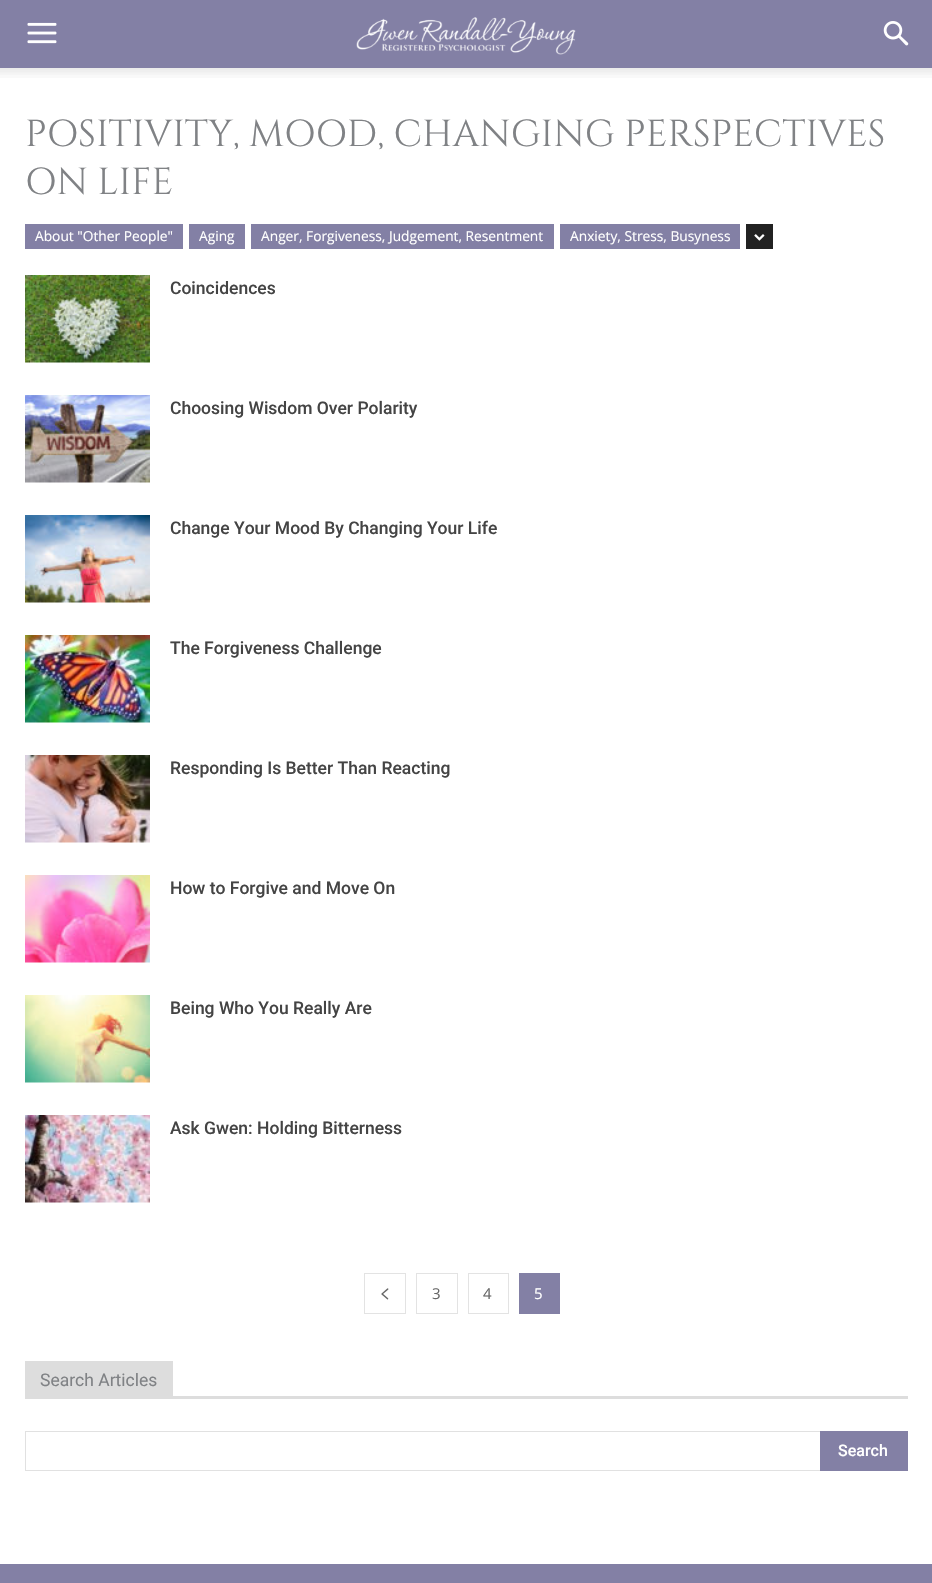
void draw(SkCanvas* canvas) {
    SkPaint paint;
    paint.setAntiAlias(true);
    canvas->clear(0xFFFFFFFF);
    paint.setColor(0xFF8380A5);
    canvas->drawRect(SkRect::MakeXYWH(0, 0, 932, 68), paint);
    canvas->drawImageRect(SkImages::DeferredFromEncodedData(SkData::MakeFromFileName("img1.png")), SkRect::MakeXYWH(27, 22, 30, 22), SkSamplingOptions());
    canvas->drawImageRect(SkImages::DeferredFromEncodedData(SkData::MakeFromFileName("img2.png")), SkRect::MakeXYWH(356, 17, 220, 38), SkSamplingOptions());
    canvas->drawImageRect(SkImages::DeferredFromEncodedData(SkData::MakeFromFileName("img3.png")), SkRect::MakeXYWH(883, 21, 26, 25), SkSamplingOptions());
    canvas->drawImageRect(SkImages::DeferredFromEncodedData(SkData::MakeFromFileName("img4.png")), SkRect::MakeXYWH(0, 68, 932, 10), SkSamplingOptions());
    SkFont font1(fontMgr->matchFamilyStyle("Cinzel", SkFontStyle::Normal()), 37.5f);
    font1.setSubpixel(true);
    paint.setColor(0xFF808285);
    canvas->drawString("POSITIVITY, MOOD, CHANGING PERSPECTIVES", 25, 146, font1, paint);
    canvas->drawString("ON LIFE", 25, 194, font1, paint);
    paint.setColor(0xFF8380A5);
    canvas->drawRect(SkRect::MakeXYWH(25, 224, 158, 25), paint);
    SkFont font2(fontMgr->matchFamilyStyle("Open Sans", SkFontStyle::Normal()), 13.75f);
    font2.setSubpixel(true);
    paint.setColor(0xFFFFFFFF);
    canvas->drawString("About \"Other People\"", 35, 241, font2, paint);
    paint.setColor(0xFF8380A5);
    canvas->drawRect(SkRect::MakeXYWH(189, 224, 56, 25), paint);
    paint.setColor(0xFFFFFFFF);
    canvas->drawString("Aging", 199, 241, font2, paint);
    paint.setColor(0xFF8380A5);
    canvas->drawRect(SkRect::MakeXYWH(251, 224, 303, 25), paint);
    paint.setColor(0xFFFFFFFF);
    canvas->drawString("Anger, Forgiveness, Judgement, Resentment", 261, 241, font2, paint);
    paint.setColor(0xFF8380A5);
    canvas->drawRect(SkRect::MakeXYWH(560, 224, 180, 25), paint);
    paint.setColor(0xFFFFFFFF);
    canvas->drawString("Anxiety, Stress, Busyness", 570, 241, font2, paint);
    paint.setColor(0xFF222222);
    canvas->drawRect(SkRect::MakeXYWH(746, 224, 27, 25), paint);
    canvas->drawImageRect(SkImages::DeferredFromEncodedData(SkData::MakeFromFileName("img5.png")), SkRect::MakeXYWH(754, 234, 11, 7), SkSamplingOptions());
    canvas->drawImageRect(SkImages::DeferredFromEncodedData(SkData::MakeFromFileName("img6.png")), SkRect::MakeXYWH(25, 275, 125, 88), SkSamplingOptions());
    SkFont font3(fontMgr->matchFamilyStyle("Roboto", SkFontStyle(500, SkFontStyle::kNormal_Width, SkFontStyle::kUpright_Slant)), 17.5f);
    font3.setSubpixel(true);
    paint.setColor(0xFF444444);
    canvas->drawString("Coincidences", 170, 294, font3, paint);
    canvas->drawImageRect(SkImages::DeferredFromEncodedData(SkData::MakeFromFileName("img7.png")), SkRect::MakeXYWH(25, 395, 125, 88), SkSamplingOptions());
    canvas->drawString("Choosing Wisdom Over Polarity", 170, 414, font3, paint);
    canvas->drawImageRect(SkImages::DeferredFromEncodedData(SkData::MakeFromFileName("img8.png")), SkRect::MakeXYWH(25, 515, 125, 88), SkSamplingOptions());
    canvas->drawString("Change Your Mood By Changing Your Life", 170, 534, font3, paint);
    canvas->drawImageRect(SkImages::DeferredFromEncodedData(SkData::MakeFromFileName("img9.png")), SkRect::MakeXYWH(25, 635, 125, 88), SkSamplingOptions());
    canvas->drawString("The Forgiveness Challenge", 170, 654, font3, paint);
    canvas->drawImageRect(SkImages::DeferredFromEncodedData(SkData::MakeFromFileName("img10.png")), SkRect::MakeXYWH(25, 755, 125, 88), SkSamplingOptions());
    canvas->drawString("Responding Is Better Than Reacting", 170, 774, font3, paint);
    canvas->drawImageRect(SkImages::DeferredFromEncodedData(SkData::MakeFromFileName("img11.png")), SkRect::MakeXYWH(25, 875, 125, 88), SkSamplingOptions());
    canvas->drawString("How to Forgive and Move On", 170, 894, font3, paint);
    canvas->drawImageRect(SkImages::DeferredFromEncodedData(SkData::MakeFromFileName("img12.png")), SkRect::MakeXYWH(25, 995, 125, 88), SkSamplingOptions());
    canvas->drawString("Being Who You Really Are", 170, 1014, font3, paint);
    canvas->drawImageRect(SkImages::DeferredFromEncodedData(SkData::MakeFromFileName("img13.png")), SkRect::MakeXYWH(25, 1115, 125, 88), SkSamplingOptions());
    canvas->drawString("Ask Gwen: Holding Bitterness", 170, 1134, font3, paint);
    paint.setStyle(SkPaint::kStroke_Style);
    paint.setStrokeWidth(1);
    paint.setColor(0xFFE3E3E3);
    canvas->drawRect(SkRect::MakeXYWH(364.5f, 1273.5f, 41, 40), paint);
    canvas->drawImageRect(SkImages::DeferredFromEncodedData(SkData::MakeFromFileName("img14.png")), SkRect::MakeXYWH(381, 1288, 8, 12), SkSamplingOptions());
    canvas->drawRect(SkRect::MakeXYWH(416.5f, 1273.5f, 41, 40), paint);
    SkFont font4(fontMgr->matchFamilyStyle("Open Sans", SkFontStyle::Normal()), 15);
    font4.setSubpixel(true);
    paint.setStyle(SkPaint::kFill_Style);
    paint.setColor(0xFF666666);
    canvas->drawString("3", 432, 1299, font4, paint);
    paint.setStyle(SkPaint::kStroke_Style);
    paint.setColor(0xFFE3E3E3);
    canvas->drawRect(SkRect::MakeXYWH(468.5f, 1273.5f, 40, 40), paint);
    paint.setStyle(SkPaint::kFill_Style);
    paint.setColor(0xFF666666);
    canvas->drawString("4", 483, 1299, font4, paint);
    paint.setColor(0xFF8380A5);
    canvas->drawRect(SkRect::MakeXYWH(519, 1273, 41, 41), paint);
    paint.setColor(0xFFFFFFFF);
    canvas->drawString("5", 534, 1299, font4, paint);
    paint.setColor(0xFFDDDDDD);
    canvas->drawRect(SkRect::MakeXYWH(25, 1396, 883, 3), paint);
    canvas->drawRect(SkRect::MakeXYWH(25, 1361, 148, 35), paint);
    SkFont font5(fontMgr->matchFamilyStyle("Roboto", SkFontStyle::Normal()), 17.5f);
    font5.setSubpixel(true);
    paint.setColor(0xFF808285);
    canvas->drawString("Search Articles", 40, 1386, font5, paint);
    paint.setColor(0xFFE1E1E1);
    canvas->drawRect(SkRect::MakeXYWH(25, 1431, 795, 1), paint);
    canvas->drawRect(SkRect::MakeXYWH(25, 1470, 795, 1), paint);
    canvas->drawRect(SkRect::MakeXYWH(25, 1431, 1, 40), paint);
    paint.setColor(0xFF8380A5);
    canvas->drawRect(SkRect::MakeXYWH(820, 1431, 88, 40), paint);
    SkFont font6(fontMgr->matchFamilyStyle("Roboto", SkFontStyle(500, SkFontStyle::kNormal_Width, SkFontStyle::kUpright_Slant)), 16);
    font6.setSubpixel(true);
    paint.setColor(0xFFFFFFFF);
    canvas->drawString("Search", 838, 1456, font6, paint);
    paint.setColor(0xFF8380A5);
    canvas->drawRect(SkRect::MakeXYWH(0, 1564, 932, 19), paint);
}
